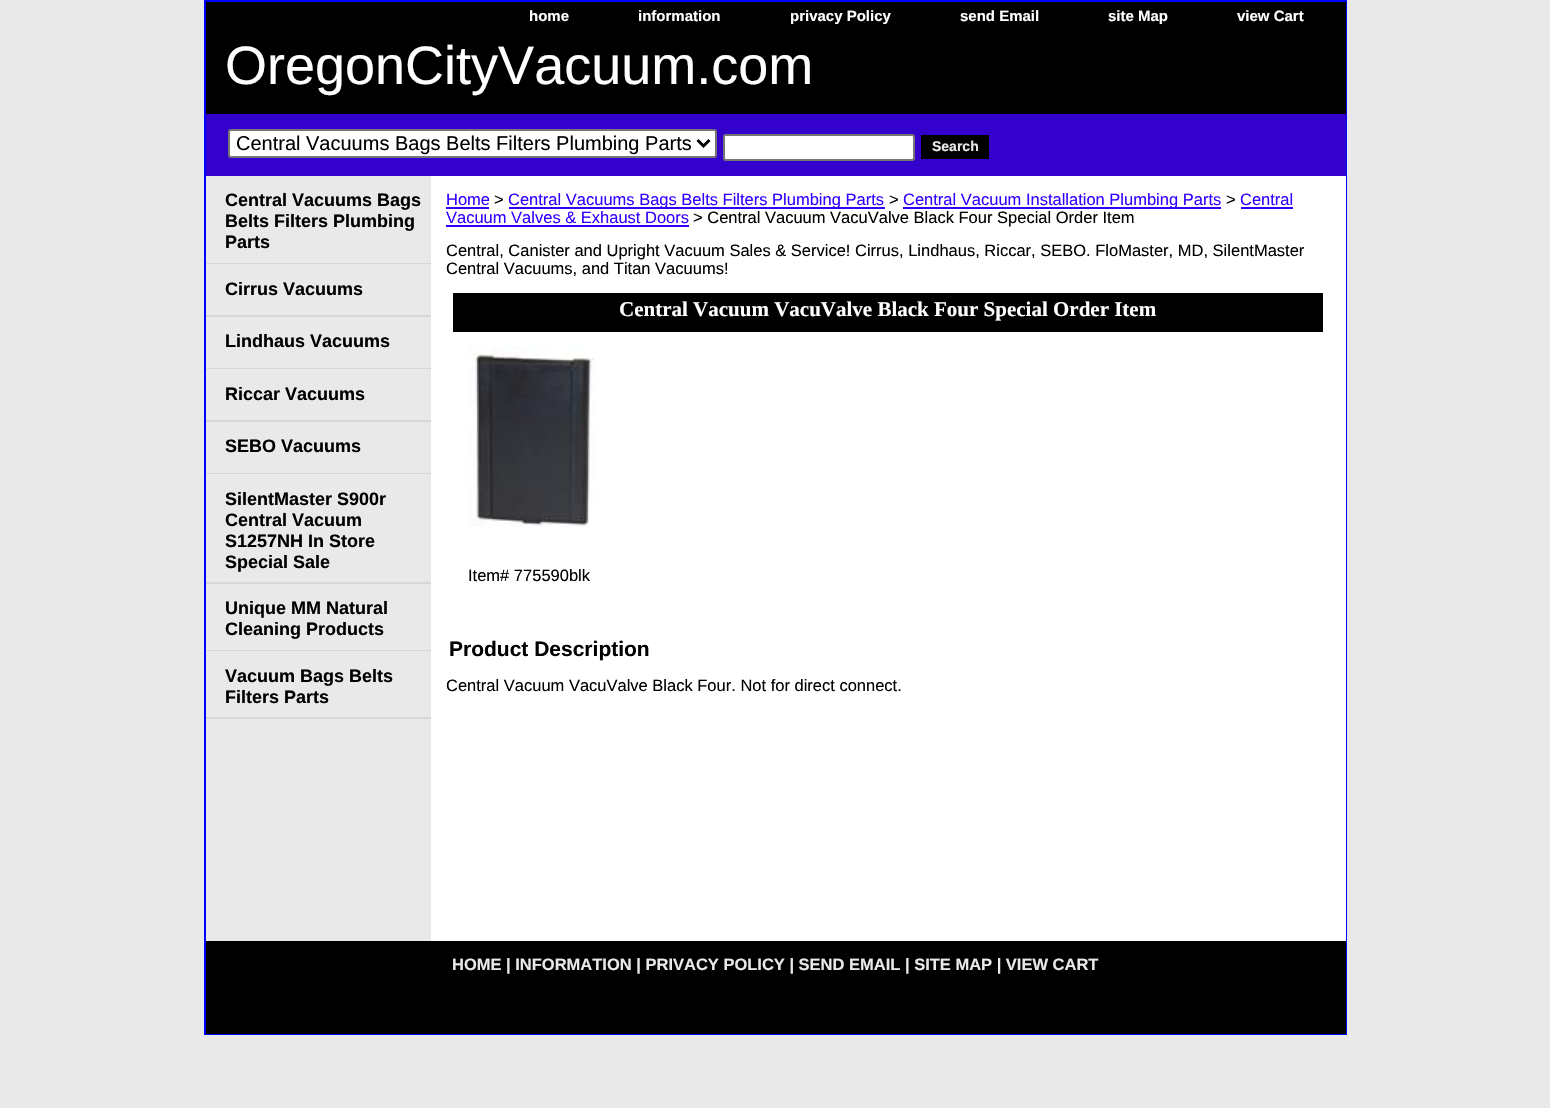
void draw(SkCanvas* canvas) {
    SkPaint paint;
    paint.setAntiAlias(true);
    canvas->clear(0xFFE9E9E9);
    paint.setStyle(SkPaint::kStroke_Style);
    paint.setStrokeWidth(2);
    paint.setColor(0xFF0000FF);
    canvas->drawRect(SkRect::MakeXYWH(205, 1, 1141, 1033), paint);
    paint.setStyle(SkPaint::kFill_Style);
    paint.setColor(0xFF000000);
    canvas->drawRect(SkRect::MakeXYWH(206, 2, 1140, 112), paint);
    SkFont font1(fontMgr->matchFamilyStyle("Liberation Sans", SkFontStyle::Bold()), 15);
    font1.setSubpixel(true);
    paint.setColor(0xFFFFFFFF);
    canvas->drawString("home", 529, 21, font1, paint);
    canvas->drawString("information", 638, 21, font1, paint);
    canvas->drawString("privacy Policy", 790, 21, font1, paint);
    canvas->drawString("send Email", 960, 21, font1, paint);
    canvas->drawString("site Map", 1108, 21, font1, paint);
    canvas->drawString("view Cart", 1237, 21, font1, paint);
    SkFont font2(fontMgr->matchFamilyStyle("Liberation Sans", SkFontStyle::Normal()), 54);
    font2.setSubpixel(true);
    canvas->drawString("OregonCityVacuum.com", 225, 84, font2, paint);
    paint.setColor(0xFF3300CC);
    canvas->drawRect(SkRect::MakeXYWH(206, 114, 1140, 62), paint);
    paint.setColor(0xFFFFFFFF);
    canvas->drawRoundRect(SkRect::MakeXYWH(229, 130, 487, 27), 2, 2, paint);
    paint.setStyle(SkPaint::kStroke_Style);
    paint.setColor(0xFF767676);
    canvas->drawRoundRect(SkRect::MakeXYWH(229, 130, 487, 27), 2, 2, paint);
    paint.setStrokeWidth(3);
    paint.setColor(0xFF000000);
    canvas->drawPath(SkPathBuilder().moveTo(697.5f, 140).lineTo(703.5f, 146).lineTo(709.5f, 140).detach(), paint);
    SkFont font3(fontMgr->matchFamilyStyle("Liberation Sans", SkFontStyle::Normal()), 20);
    font3.setSubpixel(true);
    paint.setStyle(SkPaint::kFill_Style);
    canvas->drawString("Central Vacuums Bags Belts Filters Plumbing Parts", 236, 150, font3, paint);
    paint.setColor(0xFFFFFFFF);
    canvas->drawRoundRect(SkRect::MakeXYWH(724, 135, 190, 25), 2, 2, paint);
    paint.setStyle(SkPaint::kStroke_Style);
    paint.setStrokeWidth(2);
    paint.setColor(0xFF767676);
    canvas->drawRoundRect(SkRect::MakeXYWH(724, 135, 190, 25), 2, 2, paint);
    paint.setStyle(SkPaint::kFill_Style);
    paint.setColor(0xFF000000);
    canvas->drawRect(SkRect::MakeXYWH(921, 135, 68, 24), paint);
    SkFont font4(fontMgr->matchFamilyStyle("Liberation Sans", SkFontStyle::Bold()), 14);
    font4.setSubpixel(true);
    paint.setColor(0xFFE9E9E9);
    canvas->drawString("Search", 932, 151, font4, paint);
    paint.setColor(0xFFFFFFFF);
    canvas->drawRect(SkRect::MakeXYWH(431, 176, 915, 765), paint);
    paint.setColor(0xFFD6D8D3);
    canvas->drawRect(SkRect::MakeXYWH(206, 263, 225, 1), paint);
    SkFont font5(fontMgr->matchFamilyStyle("Liberation Sans", SkFontStyle::Bold()), 18);
    font5.setSubpixel(true);
    paint.setColor(0xFF000000);
    canvas->drawString("Central Vacuums Bags", 225, 206, font5, paint);
    canvas->drawString("Belts Filters Plumbing", 225, 227, font5, paint);
    canvas->drawString("Parts", 225, 248, font5, paint);
    paint.setColor(0xFFD6D8D3);
    canvas->drawRect(SkRect::MakeXYWH(206, 315, 225, 2), paint);
    paint.setColor(0xFF000000);
    canvas->drawString("Cirrus Vacuums", 225, 295, font5, paint);
    paint.setColor(0xFFD6D8D3);
    canvas->drawRect(SkRect::MakeXYWH(206, 368, 225, 1), paint);
    paint.setColor(0xFF000000);
    canvas->drawString("Lindhaus Vacuums", 225, 347, font5, paint);
    paint.setColor(0xFFD6D8D3);
    canvas->drawRect(SkRect::MakeXYWH(206, 420, 225, 2), paint);
    paint.setColor(0xFF000000);
    canvas->drawString("Riccar Vacuums", 225, 400, font5, paint);
    paint.setColor(0xFFD6D8D3);
    canvas->drawRect(SkRect::MakeXYWH(206, 473, 225, 1), paint);
    paint.setColor(0xFF000000);
    canvas->drawString("SEBO Vacuums", 225, 452, font5, paint);
    paint.setColor(0xFFD6D8D3);
    canvas->drawRect(SkRect::MakeXYWH(206, 582, 225, 2), paint);
    paint.setColor(0xFF000000);
    canvas->drawString("SilentMaster S900r", 225, 505, font5, paint);
    canvas->drawString("Central Vacuum", 225, 526, font5, paint);
    canvas->drawString("S1257NH In Store", 225, 547, font5, paint);
    canvas->drawString("Special Sale", 225, 568, font5, paint);
    paint.setColor(0xFFD6D8D3);
    canvas->drawRect(SkRect::MakeXYWH(206, 650, 225, 1), paint);
    paint.setColor(0xFF000000);
    canvas->drawString("Unique MM Natural", 225, 614, font5, paint);
    canvas->drawString("Cleaning Products", 225, 635, font5, paint);
    paint.setColor(0xFFD6D8D3);
    canvas->drawRect(SkRect::MakeXYWH(206, 717, 225, 2), paint);
    paint.setColor(0xFF000000);
    canvas->drawString("Vacuum Bags Belts", 225, 682, font5, paint);
    canvas->drawString("Filters Parts", 225, 703, font5, paint);
    SkFont font6(fontMgr->matchFamilyStyle("Liberation Sans", SkFontStyle::Normal()), 16.5f);
    font6.setSubpixel(true);
    paint.setColor(0xFF3300FF);
    canvas->drawString("Home", 446, 205, font6, paint);
    canvas->drawRect(SkRect::MakeXYWH(446, 207, 43, 2), paint);
    paint.setColor(0xFF000000);
    canvas->drawString(">", 494, 205, font6, paint);
    paint.setColor(0xFF3300FF);
    canvas->drawRect(SkRect::MakeXYWH(509, 207, 376, 2), paint);
    canvas->drawString("Central Vacuums Bags Belts Filters Plumbing Parts", 508, 205, font6, paint);
    paint.setColor(0xFF000000);
    canvas->drawString(">", 889, 205, font6, paint);
    paint.setColor(0xFF3300FF);
    canvas->drawRect(SkRect::MakeXYWH(903, 207, 318, 2), paint);
    canvas->drawString("Central Vacuum Installation Plumbing Parts", 903, 205, font6, paint);
    paint.setColor(0xFF000000);
    canvas->drawString(">", 1226, 205, font6, paint);
    paint.setColor(0xFF3300FF);
    canvas->drawString("Central", 1240, 205, font6, paint);
    canvas->drawRect(SkRect::MakeXYWH(1241, 207, 52, 2), paint);
    canvas->drawString("Vacuum Valves & Exhaust Doors", 446, 223, font6, paint);
    canvas->drawRect(SkRect::MakeXYWH(446, 225, 243, 2), paint);
    paint.setColor(0xFF000000);
    canvas->drawString("> Central Vacuum VacuValve Black Four Special Order Item", 693, 223, font6, paint);
    canvas->drawString("Central, Canister and Upright Vacuum Sales & Service! Cirrus, Lindhaus, Riccar, SEBO. FloMaster, MD, SilentMaster", 446, 256, font6, paint);
    canvas->drawString("Central Vacuums, and Titan Vacuums!", 446, 274, font6, paint);
    canvas->drawRect(SkRect::MakeXYWH(453, 293, 870, 39), paint);
    SkFont font7(fontMgr->matchFamilyStyle("Liberation Serif", SkFontStyle::Bold()), 21);
    font7.setSubpixel(true);
    paint.setColor(0xFFFFFFFF);
    canvas->drawString("Central Vacuum VacuValve Black Four Special Order Item", 619, 316, font7, paint);
    canvas->drawImageRect(SkImages::DeferredFromEncodedData(SkData::MakeFromFileName("img1.png")), SkRect::MakeXYWH(468, 346, 128, 181), SkSamplingOptions());
    paint.setColor(0xFF000000);
    canvas->drawString("Item# 775590blk", 468, 581, font6, paint);
    SkFont font8(fontMgr->matchFamilyStyle("Liberation Sans", SkFontStyle::Bold()), 21);
    font8.setSubpixel(true);
    canvas->drawString("Product Description", 449, 656, font8, paint);
    canvas->drawString("Central Vacuum VacuValve Black Four. Not for direct connect.", 446, 691, font6, paint);
    canvas->drawRect(SkRect::MakeXYWH(206, 941, 1140, 93), paint);
    SkFont font9(fontMgr->matchFamilyStyle("Liberation Sans", SkFontStyle::Bold()), 16.5f);
    font9.setSubpixel(true);
    paint.setColor(0xFFE9E9E9);
    canvas->drawString("HOME | INFORMATION | PRIVACY POLICY | SEND EMAIL | SITE MAP | VIEW CART", 452, 970, font9, paint);
}
